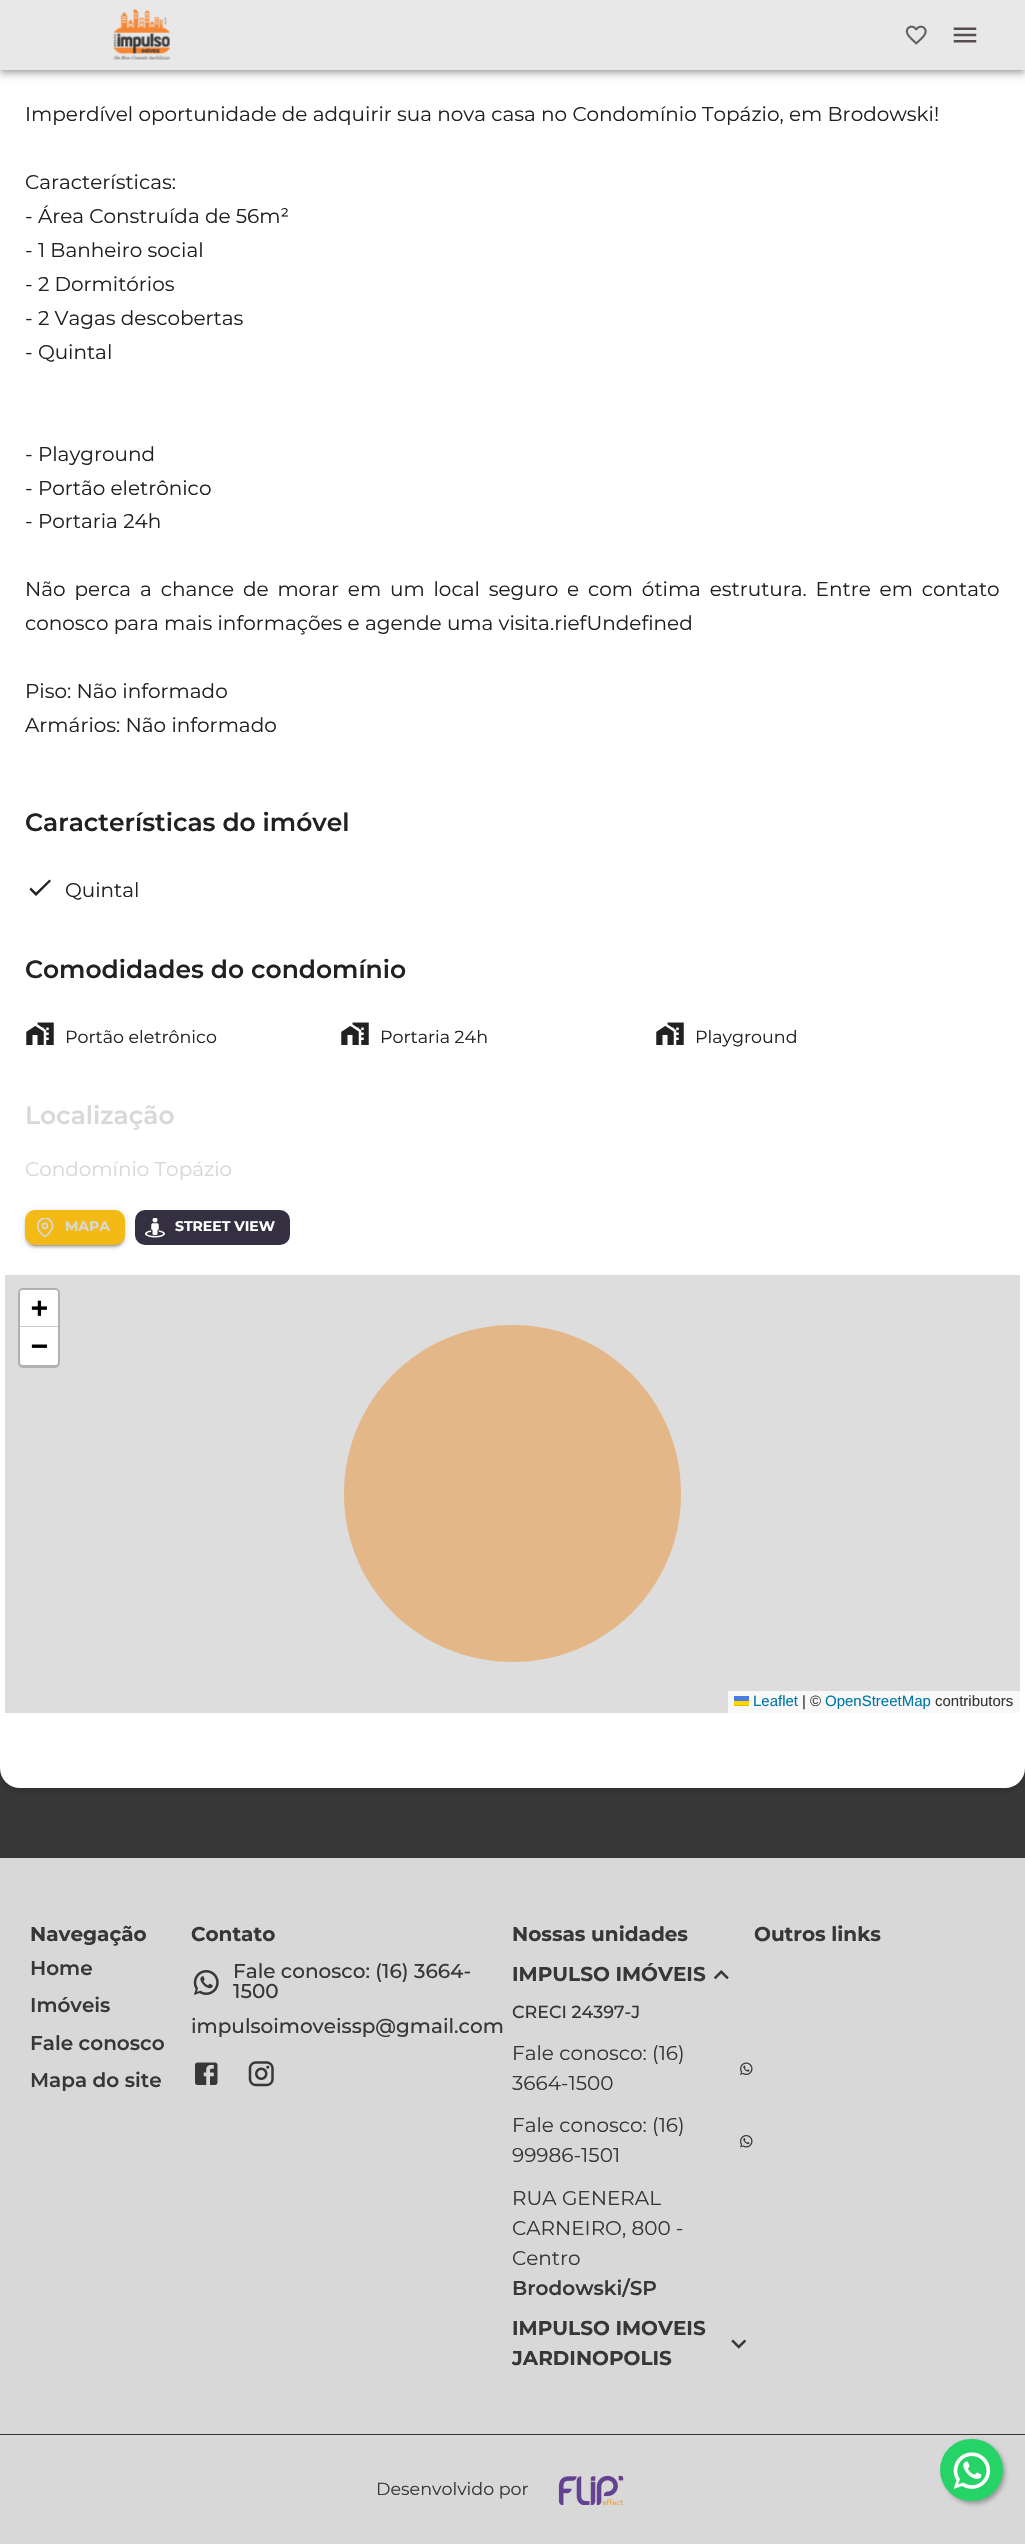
void draw(SkCanvas* canvas) {
    SkPaint paint;
    paint.setAntiAlias(true);
    auto spacedText = [&](const char* s, float x, float y, const SkFont& font, const SkPaint& ink, float letter, float word) {
        std::vector<SkGlyphID> glyphs(font.countText(s, strlen(s), SkTextEncoding::kUTF8));
        std::vector<float> xs(glyphs.size());
        font.textToGlyphs(s, strlen(s), SkTextEncoding::kUTF8, glyphs);
        font.getXPos(glyphs, xs, x);
        float extra = 0;
        for (size_t i = 0; i < glyphs.size(); i++) {
            xs[i] += extra;
            extra += letter + word * (glyphs[i] == font.unicharToGlyph(' '));
        }
        canvas->drawTextBlob(SkTextBlob::MakeFromPosHGlyphs(glyphs, xs, y, font), 0, 0, ink);
    };
    canvas->clear(0xFF373737);
    paint.setColor(0x33000000);
    paint.setMaskFilter(SkMaskFilter::MakeBlur(kNormal_SkBlurStyle, 3));
    canvas->drawRoundRect(SkRect::MakeXYWH(1, -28, 1023, 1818), 19, 19, paint);
    paint.setMaskFilter(nullptr);
    paint.setColor(0xFFFFFFFF);
    canvas->drawRoundRect(SkRect::MakeXYWH(0, -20, 1025, 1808), 20, 20, paint);
    paint.setColor(0x1F000000);
    paint.setMaskFilter(SkMaskFilter::MakeBlur(kNormal_SkBlurStyle, 6));
    canvas->drawRect(SkRect::MakeXYWH(0, 1, 1025, 70), paint);
    paint.setMaskFilter(nullptr);
    paint.setColor(0x24000000);
    paint.setMaskFilter(SkMaskFilter::MakeBlur(kNormal_SkBlurStyle, 3));
    canvas->drawRect(SkRect::MakeXYWH(0, 5, 1025, 70), paint);
    paint.setMaskFilter(nullptr);
    paint.setColor(0x33000000);
    paint.setMaskFilter(SkMaskFilter::MakeBlur(kNormal_SkBlurStyle, 2.5f));
    canvas->drawRect(SkRect::MakeXYWH(1, 4, 1023, 67), paint);
    paint.setMaskFilter(nullptr);
    paint.setColor(0xFFE8E8E8);
    canvas->drawRect(SkRect::MakeXYWH(0, 0, 1025, 70), paint);
    canvas->drawImageRect(SkImages::DeferredFromEncodedData(SkData::MakeFromFileName("img1.png")), SkRect::MakeXYWH(113, 9, 57, 51), SkSamplingOptions());
    canvas->drawImageRect(SkImages::DeferredFromEncodedData(SkData::MakeFromFileName("img2.png")), SkRect::MakeXYWH(905, 25, 22, 20), SkSamplingOptions());
    canvas->drawImageRect(SkImages::DeferredFromEncodedData(SkData::MakeFromFileName("img3.png")), SkRect::MakeXYWH(953, 27, 24, 16), SkSamplingOptions());
    SkFont font1(fontMgr->matchFamilyStyle("Montserrat", SkFontStyle::Normal()), 20);
    font1.setSubpixel(true);
    paint.setColor(0xFF212121);
    canvas->drawString("Imperdível oportunidade de adquirir sua nova casa no Condomínio Topázio, em Brodowski!", 25, 121, font1, paint);
    canvas->drawString("Características:", 25, 189, font1, paint);
    canvas->drawString("- Área Construída de 56m²", 25, 223, font1, paint);
    canvas->drawString("- 1 Banheiro social", 25, 257, font1, paint);
    canvas->drawString("- 2 Dormitórios", 25, 291, font1, paint);
    canvas->drawString("- 2 Vagas descobertas", 25, 325, font1, paint);
    canvas->drawString("- Quintal", 25, 359, font1, paint);
    canvas->drawString("- Playground", 25, 461, font1, paint);
    canvas->drawString("- Portão eletrônico", 25, 495, font1, paint);
    canvas->drawString("- Portaria 24h", 25, 528, font1, paint);
    spacedText("Não perca a chance de morar em um local seguro e com ótima estrutura. Entre em contato", 25, 596, font1, paint, 0, 3.6f);
    canvas->drawString("conosco para mais informações e agende uma visita.riefUndefined", 25, 630, font1, paint);
    canvas->drawString("Piso: Não informado", 25, 698, font1, paint);
    canvas->drawString("Armários: Não informado", 25, 732, font1, paint);
    SkFont font2(fontMgr->matchFamilyStyle("Montserrat", SkFontStyle(600, SkFontStyle::kNormal_Width, SkFontStyle::kUpright_Slant)), 25);
    font2.setSubpixel(true);
    canvas->drawString("Características do imóvel", 25, 831, font2, paint);
    canvas->drawPath(SkPathBuilder().moveTo(36, 892.5f).lineTo(31, 887.5f).lineTo(29.5f, 889.5f).lineTo(36, 896).lineTo(51, 881).lineTo(49.5f, 879.5f).close().detach(), paint);
    canvas->drawString("Quintal", 65, 897, font1, paint);
    canvas->drawString("Comodidades do condomínio", 25, 978, font2, paint);
    canvas->drawImageRect(SkImages::DeferredFromEncodedData(SkData::MakeFromFileName("img4.png")), SkRect::MakeXYWH(26, 1022, 28, 23), SkSamplingOptions());
    SkFont font3(fontMgr->matchFamilyStyle("Montserrat", SkFontStyle::Normal()), 17.5f);
    font3.setSubpixel(true);
    canvas->drawString("Portão eletrônico", 65, 1043, font3, paint);
    canvas->drawImageRect(SkImages::DeferredFromEncodedData(SkData::MakeFromFileName("img4.png")), SkRect::MakeXYWH(341, 1022, 28, 23), SkSamplingOptions());
    canvas->drawString("Portaria 24h", 380, 1043, font3, paint);
    canvas->drawImageRect(SkImages::DeferredFromEncodedData(SkData::MakeFromFileName("img4.png")), SkRect::MakeXYWH(656, 1022, 28, 23), SkSamplingOptions());
    canvas->drawString("Playground", 695, 1043, font3, paint);
    paint.setColor(0xFFD8D8D8);
    canvas->drawString("Localização", 25, 1124, font2, paint);
    canvas->drawString("Condomínio Topázio", 25, 1176, font1, paint);
    paint.setColor(0x1F000000);
    paint.setMaskFilter(SkMaskFilter::MakeBlur(kNormal_SkBlurStyle, 3));
    canvas->drawRoundRect(SkRect::MakeXYWH(25, 1211, 100, 35), 10, 10, paint);
    paint.setMaskFilter(nullptr);
    paint.setColor(0x24000000);
    paint.setMaskFilter(SkMaskFilter::MakeBlur(kNormal_SkBlurStyle, 1));
    canvas->drawRoundRect(SkRect::MakeXYWH(25, 1213, 100, 35), 10, 10, paint);
    paint.setMaskFilter(nullptr);
    paint.setColor(0x33000000);
    paint.setMaskFilter(SkMaskFilter::MakeBlur(kNormal_SkBlurStyle, 0.5f));
    canvas->drawRoundRect(SkRect::MakeXYWH(28, 1216, 95, 30), 8, 8, paint);
    paint.setMaskFilter(nullptr);
    paint.setColor(0xFFF3B915);
    canvas->drawRoundRect(SkRect::MakeXYWH(25, 1210, 100, 35), 10, 10, paint);
    canvas->save();
    canvas->clipRect(SkRect::MakeXYWH(35, 1218, 20, 20));
    paint.setStyle(SkPaint::kStroke_Style);
    paint.setStrokeWidth(1.7f);
    paint.setStrokeCap(SkPaint::kRound_Cap);
    paint.setStrokeJoin(SkPaint::kRound_Join);
    paint.setColor(0xFFD8D8D8);
    canvas->drawPath(SkPathBuilder().moveTo(52.5f, 1226).cubicTo(52.5f, 1231.5f, 45, 1236.5f, 45, 1236.5f).cubicTo(29.5f, 1226.5f, 42.5f, 1212.5f, 50.5f, 1220.5f).cubicTo(51.5f, 1222, 52.5f, 1224, 52.5f, 1226).close().detach(), paint);
    canvas->restore();
    paint.setStrokeCap(SkPaint::kButt_Cap);
    paint.setStrokeJoin(SkPaint::kMiter_Join);
    canvas->drawCircle(45, 1225.8f, 2.5f, paint);
    SkFont font4(fontMgr->matchFamilyStyle("Montserrat", SkFontStyle::Bold()), 14);
    font4.setSubpixel(true);
    paint.setStyle(SkPaint::kFill_Style);
    canvas->drawString("MAPA", 65, 1231, font4, paint);
    paint.setColor(0xFF343041);
    canvas->drawRoundRect(SkRect::MakeXYWH(135, 1210, 155, 35), 10, 10, paint);
    canvas->drawImageRect(SkImages::DeferredFromEncodedData(SkData::MakeFromFileName("img5.png")), SkRect::MakeXYWH(145, 1218, 20, 20), SkSamplingOptions());
    paint.setColor(0xFFFFFFFF);
    canvas->drawString("STREET VIEW", 175, 1231, font4, paint);
    paint.setColor(0xFFDDDDDD);
    canvas->drawRect(SkRect::MakeXYWH(5, 1275, 1015, 438), paint);
    paint.setStyle(SkPaint::kStroke_Style);
    paint.setStrokeWidth(3);
    paint.setColor(0xFFB1B1B1);
    canvas->drawRoundRect(SkRect::MakeXYWH(19.5f, 1289.5f, 39, 77), 3.5f, 3.5f, paint);
    paint.setStyle(SkPaint::kFill_Style);
    paint.setColor(0xFFFFFFFF);
    canvas->drawPath(SkPathBuilder().moveTo(22.5f, 1290).lineTo(55.5f, 1290).cubicTo(57, 1290, 58, 1291, 58, 1292.5f).lineTo(58, 1328).lineTo(20, 1328).lineTo(20, 1292.5f).cubicTo(20, 1291, 21, 1290, 22.5f, 1290).close().detach(), paint);
    paint.setColor(0xFFCCCCCC);
    canvas->drawRect(SkRect::MakeXYWH(20, 1326, 38, 1), paint);
    SkFont font5(fontMgr->matchFamilyStyle("DejaVu Sans Mono", SkFontStyle::Bold()), 28);
    font5.setSubpixel(true);
    paint.setColor(0xFF000000);
    canvas->drawString("+", 31, 1317, font5, paint);
    paint.setColor(0xFFFFFFFF);
    canvas->drawPath(SkPathBuilder().moveTo(20, 1328).lineTo(58, 1328).lineTo(58, 1362.5f).cubicTo(58, 1364, 57, 1365, 55.5f, 1365).lineTo(22.5f, 1365).cubicTo(21, 1365, 20, 1364, 20, 1362.5f).close().detach(), paint);
    paint.setColor(0xFF000000);
    canvas->drawString("−", 31, 1355, font5, paint);
    paint.setColor(0xFFF8F8F8);
    canvas->drawRect(SkRect::MakeXYWH(728, 1691, 292, 22), paint);
    SkFont font6(fontMgr->matchFamilyStyle("Liberation Sans", SkFontStyle::Normal()), 15);
    font6.setSubpixel(true);
    paint.setColor(0xFF0078A8);
    canvas->drawString("Leaflet", 753, 1706, font6, paint);
    paint.setColor(0xFF4C7BE1);
    canvas->drawRect(SkRect::MakeXYWH(734, 1696, 15, 5), paint);
    paint.setColor(0xFFFFD500);
    canvas->drawRect(SkRect::MakeXYWH(734, 1701, 15, 4), paint);
    paint.setColor(0xFFE0BC00);
    canvas->drawRect(SkRect::MakeXYWH(734, 1705, 15, 1), paint);
    paint.setColor(0xFF373737);
    canvas->drawString("| ©", 802, 1706, font6, paint);
    paint.setColor(0xFF0078A8);
    canvas->drawString("OpenStreetMap", 825, 1706, font6, paint);
    paint.setColor(0xFF373737);
    canvas->drawString("contributors", 935, 1706, font6, paint);
    paint.setColor(0xFFE4B789);
    canvas->drawPath(SkPathBuilder(SkPathFillType::kEvenOdd).moveTo(344, 1494).cubicTo(344, 1587, 419, 1662, 513, 1662).cubicTo(606, 1662, 681, 1587, 681, 1494).cubicTo(681, 1400, 606, 1325, 513, 1325).cubicTo(419, 1325, 344, 1400, 344, 1494).detach(), paint);
    paint.setColor(0xFFD8D8D8);
    canvas->drawRect(SkRect::MakeXYWH(0, 1858, 1025, 686), paint);
    SkFont font7(fontMgr->matchFamilyStyle("Montserrat", SkFontStyle::Bold()), 20);
    font7.setSubpixel(true);
    paint.setColor(0xFF373737);
    canvas->drawString("Navegação", 30, 1941, font7, paint);
    SkFont font8(fontMgr->matchFamilyStyle("Montserrat", SkFontStyle(600, SkFontStyle::kNormal_Width, SkFontStyle::kUpright_Slant)), 20);
    font8.setSubpixel(true);
    canvas->drawString("Home", 30, 1975, font8, paint);
    canvas->drawString("Imóveis", 30, 2012, font8, paint);
    canvas->drawString("Fale conosco", 30, 2050, font8, paint);
    canvas->drawString("Mapa do site", 30, 2087, font8, paint);
    canvas->drawString("Contato", 191, 1941, font7, paint);
    canvas->drawImageRect(SkImages::DeferredFromEncodedData(SkData::MakeFromFileName("img6.png")), SkRect::MakeXYWH(193, 1970, 26, 25), SkSamplingOptions());
    SkFont font9(fontMgr->matchFamilyStyle("Montserrat", SkFontStyle(500, SkFontStyle::kNormal_Width, SkFontStyle::kUpright_Slant)), 20);
    font9.setSubpixel(true);
    canvas->drawString("Fale conosco: (16) 3664-", 233, 1978, font9, paint);
    canvas->drawString("1500", 233, 1998, font9, paint);
    canvas->drawString("impulsoimoveissp@gmail.com", 191, 2033, font9, paint);
    canvas->drawImageRect(SkImages::DeferredFromEncodedData(SkData::MakeFromFileName("img7.png")), SkRect::MakeXYWH(195, 2062, 23, 23), SkSamplingOptions());
    canvas->drawImageRect(SkImages::DeferredFromEncodedData(SkData::MakeFromFileName("img8.png")), SkRect::MakeXYWH(248, 2061, 26, 26), SkSamplingOptions());
    canvas->drawString("Nossas unidades", 512, 1941, font7, paint);
    canvas->drawString("IMPULSO IMÓVEIS", 512, 1981, font7, paint);
    canvas->drawImageRect(SkImages::DeferredFromEncodedData(SkData::MakeFromFileName("img9.png")), SkRect::MakeXYWH(713, 1970, 16, 10), SkSamplingOptions());
    SkFont font10(fontMgr->matchFamilyStyle("Montserrat", SkFontStyle(500, SkFontStyle::kNormal_Width, SkFontStyle::kUpright_Slant)), 17.5f);
    font10.setSubpixel(true);
    canvas->drawString("CRECI 24397-J", 512, 2018, font10, paint);
    canvas->drawString("Fale conosco: (16)", 512, 2060, font1, paint);
    canvas->drawString("3664-1500", 512, 2090, font1, paint);
    canvas->drawImageRect(SkImages::DeferredFromEncodedData(SkData::MakeFromFileName("img10.png")), SkRect::MakeXYWH(740, 2062, 13, 13), SkSamplingOptions());
    canvas->drawString("Fale conosco: (16)", 512, 2132, font1, paint);
    canvas->drawString("99986-1501", 512, 2162, font1, paint);
    canvas->drawImageRect(SkImages::DeferredFromEncodedData(SkData::MakeFromFileName("img11.png")), SkRect::MakeXYWH(740, 2135, 13, 13), SkSamplingOptions());
    canvas->drawString("RUA GENERAL", 512, 2205, font1, paint);
    canvas->drawString("CARNEIRO, 800 -", 512, 2235, font1, paint);
    canvas->drawString("Centro", 512, 2265, font1, paint);
    canvas->drawString("Brodowski/SP", 512, 2295, font8, paint);
    canvas->drawString("IMPULSO IMOVEIS", 512, 2335, font7, paint);
    canvas->drawString("JARDINOPOLIS", 512, 2365, font7, paint);
    canvas->drawImageRect(SkImages::DeferredFromEncodedData(SkData::MakeFromFileName("img12.png")), SkRect::MakeXYWH(731, 2339, 16, 10), SkSamplingOptions());
    canvas->drawString("Outros links", 754, 1941, font7, paint);
    canvas->drawRect(SkRect::MakeXYWH(0, 2434, 1025, 1), paint);
    canvas->drawString("Desenvolvido por", 376, 2495, font3, paint);
    canvas->drawImageRect(SkImages::DeferredFromEncodedData(SkData::MakeFromFileName("img13.png")), SkRect::MakeXYWH(558, 2475, 66, 30), SkSamplingOptions());
    paint.setColor(0xFF999999);
    paint.setMaskFilter(SkMaskFilter::MakeBlur(kNormal_SkBlurStyle, 2));
    canvas->drawRoundRect(SkRect::MakeXYWH(943, 2441, 62, 63), 31, 31, paint);
    paint.setMaskFilter(nullptr);
    paint.setColor(0xFF25D366);
    canvas->drawRoundRect(SkRect::MakeXYWH(940, 2439, 63, 62), 31, 31, paint);
    canvas->drawImageRect(SkImages::DeferredFromEncodedData(SkData::MakeFromFileName("img14.png")), SkRect::MakeXYWH(953, 2452, 38, 37), SkSamplingOptions());
}
